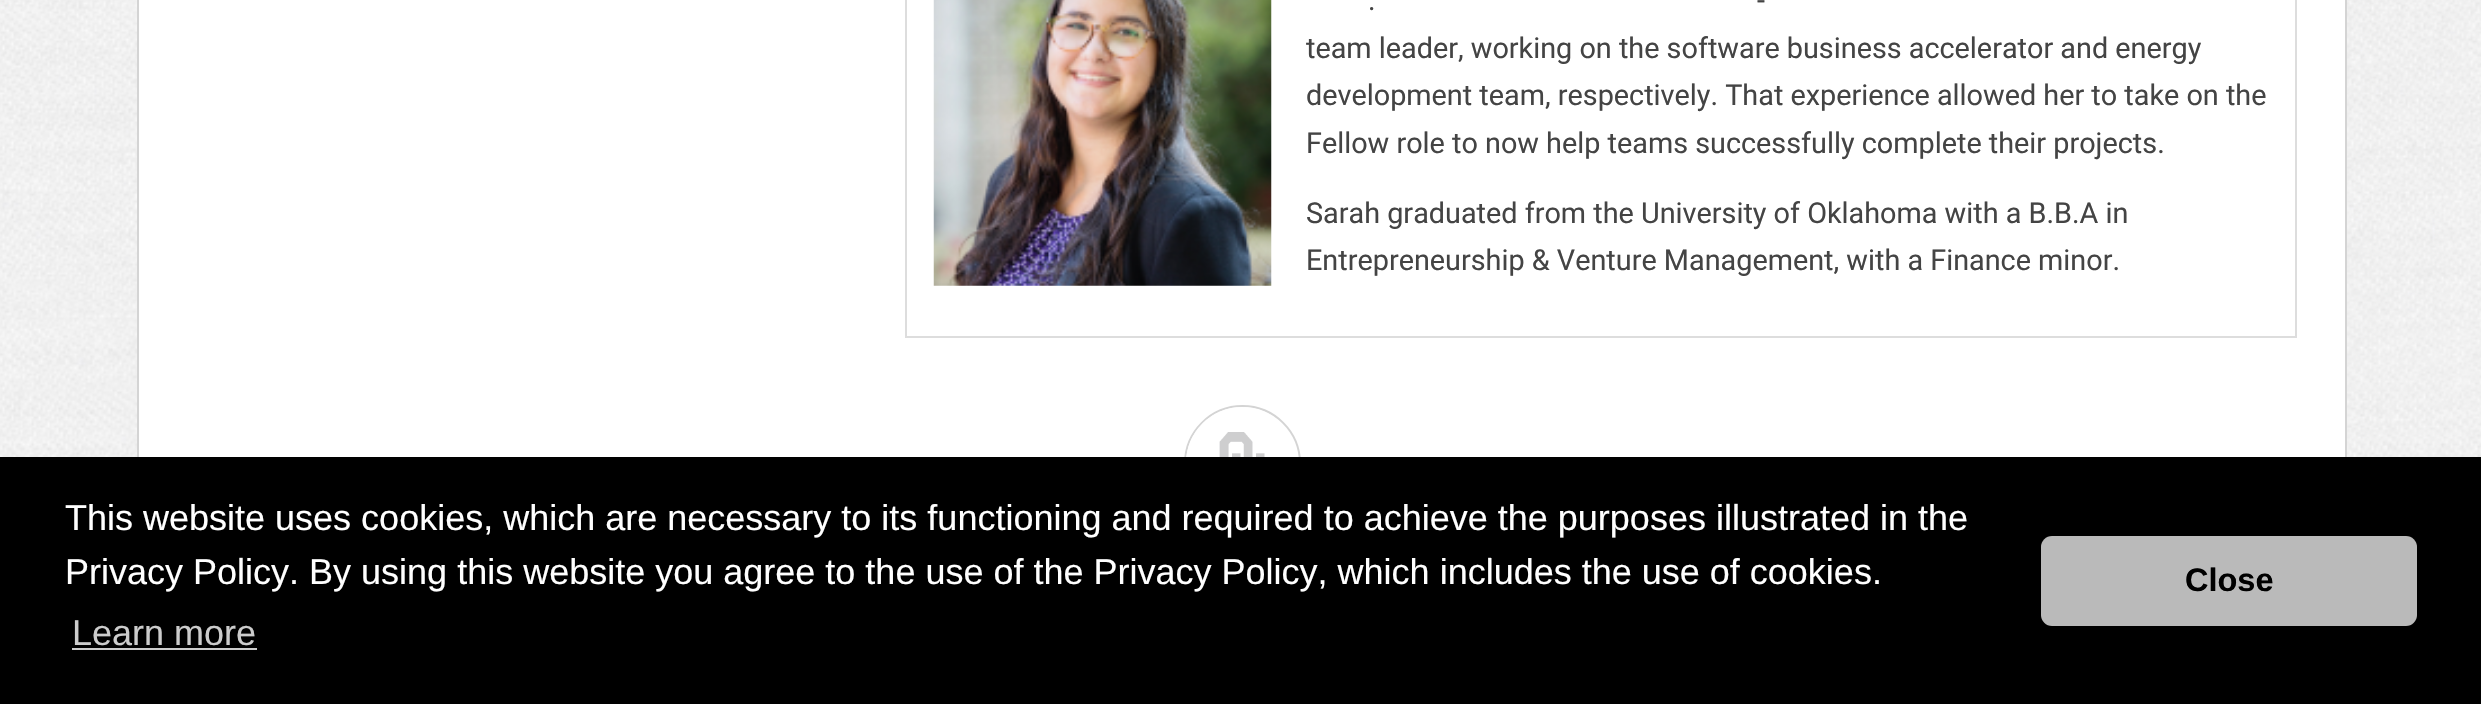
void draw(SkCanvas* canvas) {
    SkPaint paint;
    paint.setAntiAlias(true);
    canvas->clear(0xFFFFFFFF);
    canvas->drawImageRect(SkImages::DeferredFromEncodedData(SkData::MakeFromFileName("img1.png")), SkRect::MakeXYWH(0, 0, 2481, 457), SkSamplingOptions());
    paint.setColor(0xFFFFFFFF);
    canvas->drawRect(SkRect::MakeXYWH(139, 0, 2206, 457), paint);
    paint.setStyle(SkPaint::kStroke_Style);
    paint.setStrokeWidth(2);
    paint.setColor(0xFFD4D4D4);
    canvas->drawRect(SkRect::MakeXYWH(138, -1, 2208, 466), paint);
    paint.setColor(0xFFDDDDDD);
    canvas->drawRect(SkRect::MakeXYWH(906, -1, 1390, 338), paint);
    canvas->drawImageRect(SkImages::DeferredFromEncodedData(SkData::MakeFromFileName("img2.png")), SkRect::MakeXYWH(933, 0, 339, 286), SkSamplingOptions());
    SkFont font1(fontMgr->matchFamilyStyle("Roboto", SkFontStyle::Normal()), 28.8f);
    font1.setSubpixel(true);
    paint.setStyle(SkPaint::kFill_Style);
    paint.setColor(0xFF444444);
    canvas->drawString("-", 1757, 10, font1, paint);
    canvas->drawString(".", 1368, 10, font1, paint);
    canvas->drawString("team leader, working on the software business accelerator and energy", 1306, 58, font1, paint);
    canvas->drawString("development team, respectively. That experience allowed her to take on the", 1306, 105, font1, paint);
    canvas->drawString("Fellow role to now help teams successfully complete their projects.", 1306, 153, font1, paint);
    canvas->drawString("Sarah graduated from the University of Oklahoma with a B.B.A in", 1306, 223, font1, paint);
    canvas->drawString("Entrepreneurship & Venture Management, with a Finance minor.", 1306, 270, font1, paint);
    paint.setColor(0xFFFFFFFF);
    canvas->drawCircle(1242.5f, 463.5f, 57.5f, paint);
    paint.setStyle(SkPaint::kStroke_Style);
    paint.setColor(0xFFD4D4D4);
    canvas->drawCircle(1242.5f, 463.5f, 57.5f, paint);
    paint.setStyle(SkPaint::kFill_Style);
    paint.setColor(0xFFFFFFFF);
    canvas->drawRoundRect(SkRect::MakeXYWH(1186, 407, 112, 113), 56, 56, paint);
    canvas->drawImageRect(SkImages::DeferredFromEncodedData(SkData::MakeFromFileName("img3.png")), SkRect::MakeXYWH(1219, 432, 46, 25), SkSamplingOptions());
    paint.setColor(0xFF000000);
    canvas->drawRect(SkRect::MakeXYWH(0, 457, 2481, 247), paint);
    SkFont font2(fontMgr->matchFamilyStyle("Liberation Sans", SkFontStyle::Normal()), 36);
    font2.setSubpixel(true);
    paint.setColor(0xFFFFFFFF);
    canvas->drawString("This website uses cookies, which are necessary to its functioning and required to achieve the purposes illustrated in the", 65, 530, font2, paint);
    canvas->drawString("Privacy Policy. By using this website you agree to the use of the Privacy Policy, which includes the use of cookies.", 65, 584, font2, paint);
    paint.setColor(0xFFCCCCCC);
    canvas->drawString("Learn more", 72, 645, font2, paint);
    canvas->drawRect(SkRect::MakeXYWH(72, 648, 185, 2), paint);
    paint.setColor(0xFFBABABA);
    canvas->drawRoundRect(SkRect::MakeXYWH(2041, 536, 376, 90), 11, 11, paint);
    SkFont font3(fontMgr->matchFamilyStyle("Liberation Sans", SkFontStyle::Bold()), 32.5f);
    font3.setSubpixel(true);
    paint.setColor(0xFF000000);
    canvas->drawString("Close", 2185, 591, font3, paint);
}
